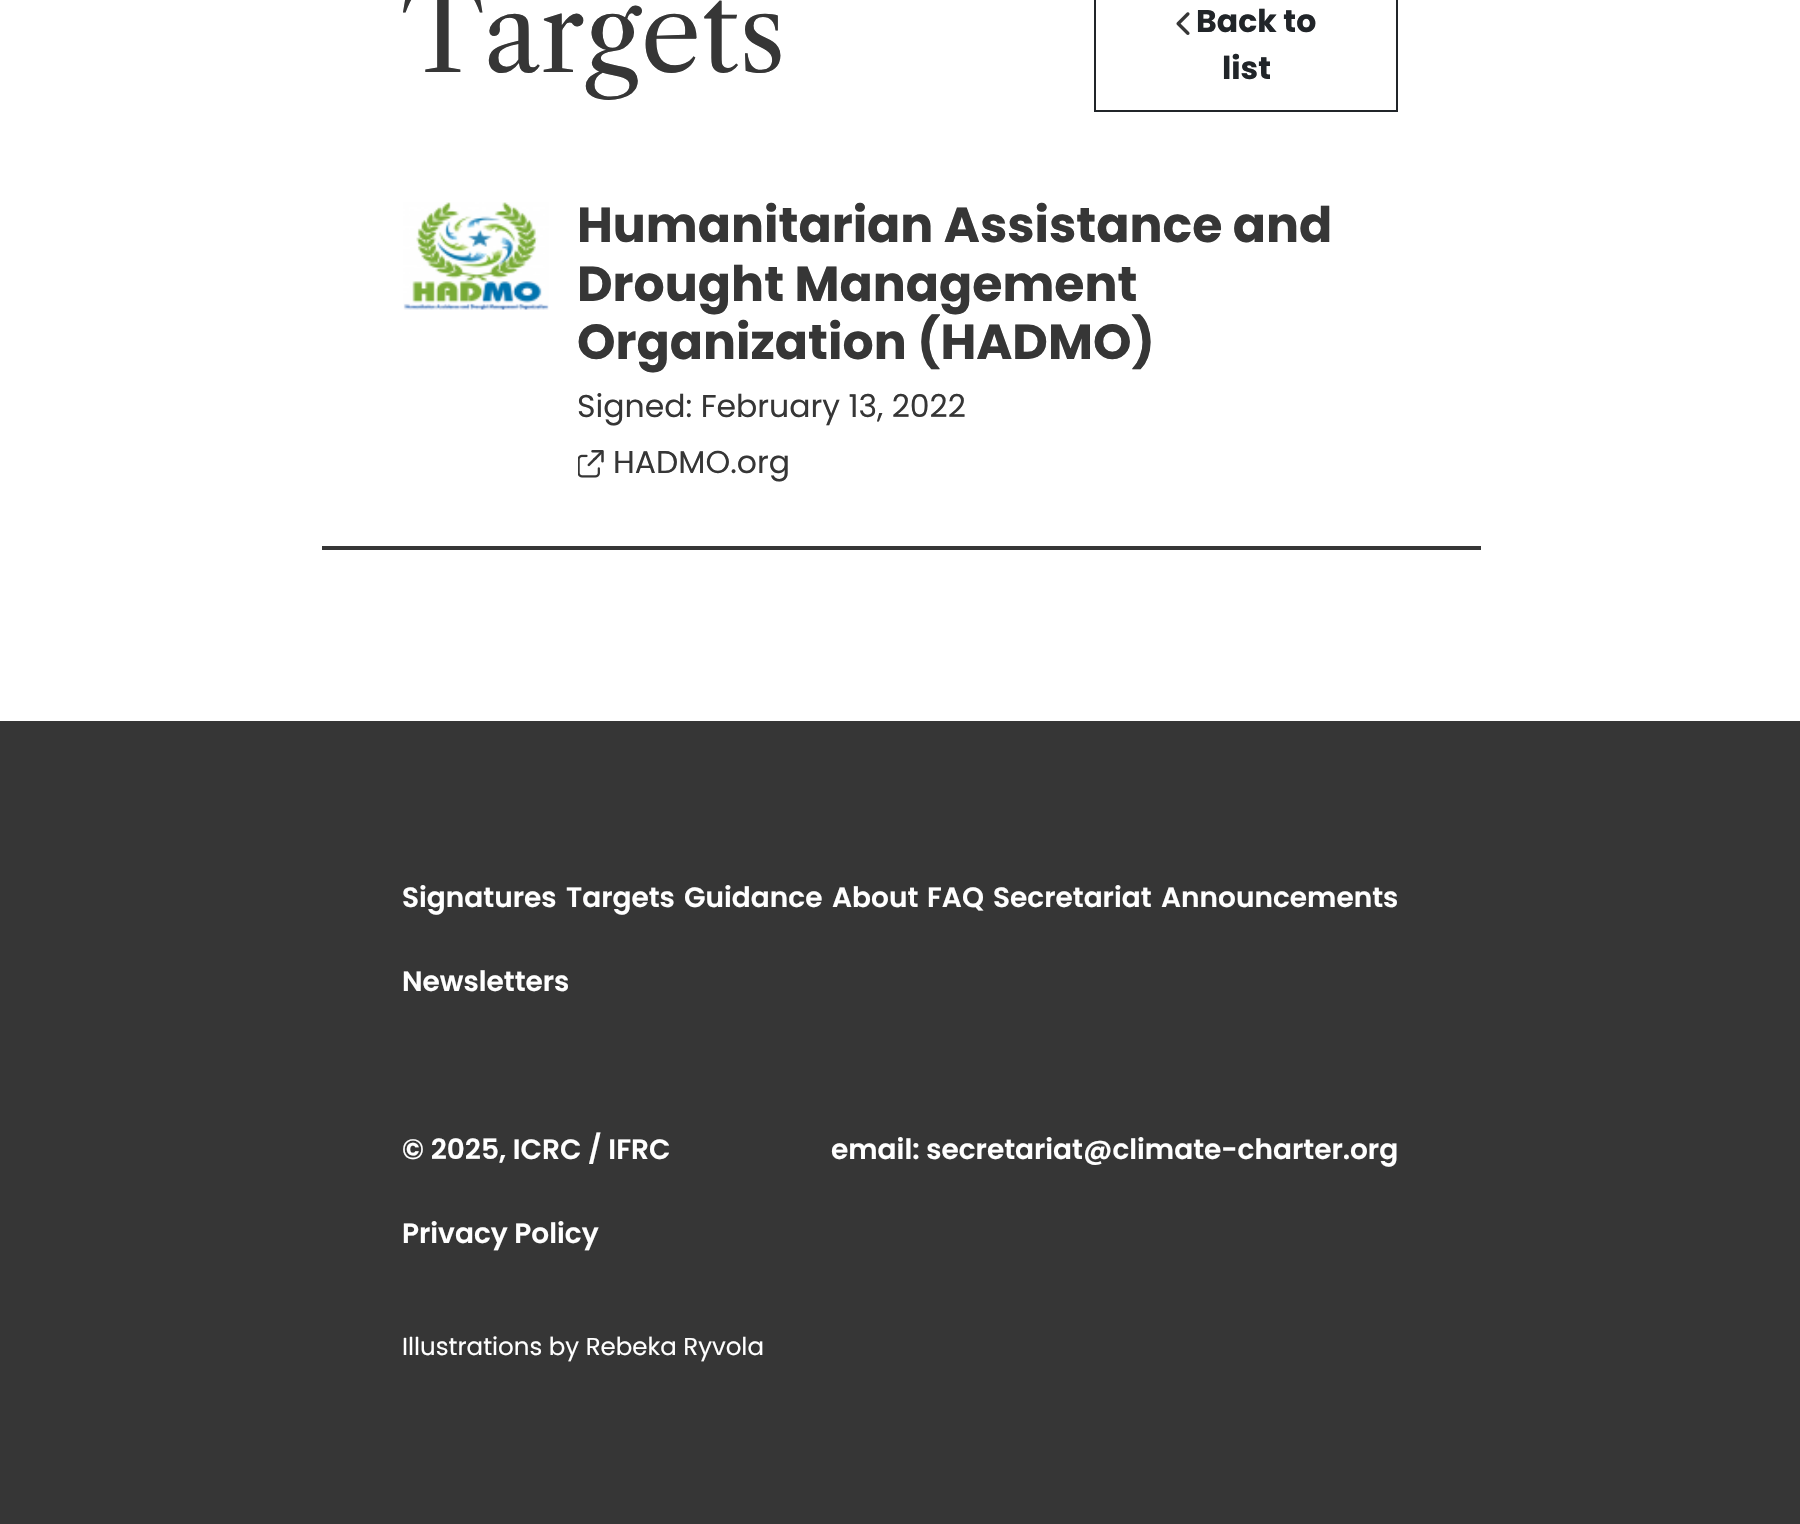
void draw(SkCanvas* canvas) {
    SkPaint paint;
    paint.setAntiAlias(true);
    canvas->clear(0xFFFFFFFF);
    SkFont font1(fontMgr->matchFamilyStyle("Libre Caslon Text", SkFontStyle::Normal()), 108);
    font1.setSubpixel(true);
    paint.setColor(0xFF363636);
    canvas->drawString("Targets", 402, 72, font1, paint);
    paint.setStyle(SkPaint::kStroke_Style);
    paint.setStrokeWidth(2);
    paint.setColor(0xFF212529);
    canvas->drawRect(SkRect::MakeXYWH(1095, -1, 302, 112), paint);
    canvas->drawImageRect(SkImages::DeferredFromEncodedData(SkData::MakeFromFileName("img1.png")), SkRect::MakeXYWH(1176, 12, 14, 23), SkSamplingOptions());
    SkFont font2(fontMgr->matchFamilyStyle("Poppins", SkFontStyle::Bold()), 31.5f);
    font2.setSubpixel(true);
    paint.setStyle(SkPaint::kFill_Style);
    canvas->drawString("Back to", 1196, 32, font2, paint);
    canvas->drawString("list", 1222, 79, font2, paint);
    canvas->drawImageRect(SkImages::DeferredFromEncodedData(SkData::MakeFromFileName("img2.png")), SkRect::MakeXYWH(403, 202, 146, 108), SkSamplingOptions());
    SkFont font3(fontMgr->matchFamilyStyle("Poppins", SkFontStyle::Bold()), 49);
    font3.setSubpixel(true);
    paint.setColor(0xFF363636);
    canvas->drawString("Humanitarian Assistance and", 577, 242, font3, paint);
    canvas->drawString("Drought Management", 577, 301, font3, paint);
    canvas->drawString("Organization (HADMO)", 577, 359, font3, paint);
    SkFont font4(fontMgr->matchFamilyStyle("Poppins", SkFontStyle::Normal()), 31.5f);
    font4.setSubpixel(true);
    canvas->drawString("Signed: February 13, 2022", 577, 417, font4, paint);
    canvas->drawImageRect(SkImages::DeferredFromEncodedData(SkData::MakeFromFileName("img3.png")), SkRect::MakeXYWH(578, 450, 26, 28), SkSamplingOptions());
    canvas->drawString("HADMO.org", 613, 473, font4, paint);
    canvas->drawRect(SkRect::MakeXYWH(322, 546, 1159, 4), paint);
    canvas->drawRect(SkRect::MakeXYWH(0, 721, 1800, 803), paint);
    SkFont font5(fontMgr->matchFamilyStyle("Poppins", SkFontStyle(600, SkFontStyle::kNormal_Width, SkFontStyle::kUpright_Slant)), 28);
    font5.setSubpixel(true);
    paint.setColor(0xFFFFFFFF);
    canvas->drawString("Signatures", 402, 907, font5, paint);
    canvas->drawString("Targets", 566, 907, font5, paint);
    canvas->drawString("Guidance", 684, 907, font5, paint);
    canvas->drawString("About", 832, 907, font5, paint);
    canvas->drawString("FAQ", 927, 907, font5, paint);
    canvas->drawString("Secretariat", 993, 907, font5, paint);
    canvas->drawString("Announcements", 1161, 907, font5, paint);
    canvas->drawString("Newsletters", 402, 991, font5, paint);
    canvas->drawString("© 2025, ICRC / IFRC", 402, 1159, font5, paint);
    canvas->drawString("email: secretariat@climate-charter.org", 831, 1159, font5, paint);
    canvas->drawString("Privacy Policy", 402, 1243, font5, paint);
    SkFont font6(fontMgr->matchFamilyStyle("Poppins", SkFontStyle::Normal()), 24.5f);
    font6.setSubpixel(true);
    canvas->drawString("Illustrations by Rebeka Ryvola", 402, 1355, font6, paint);
}
